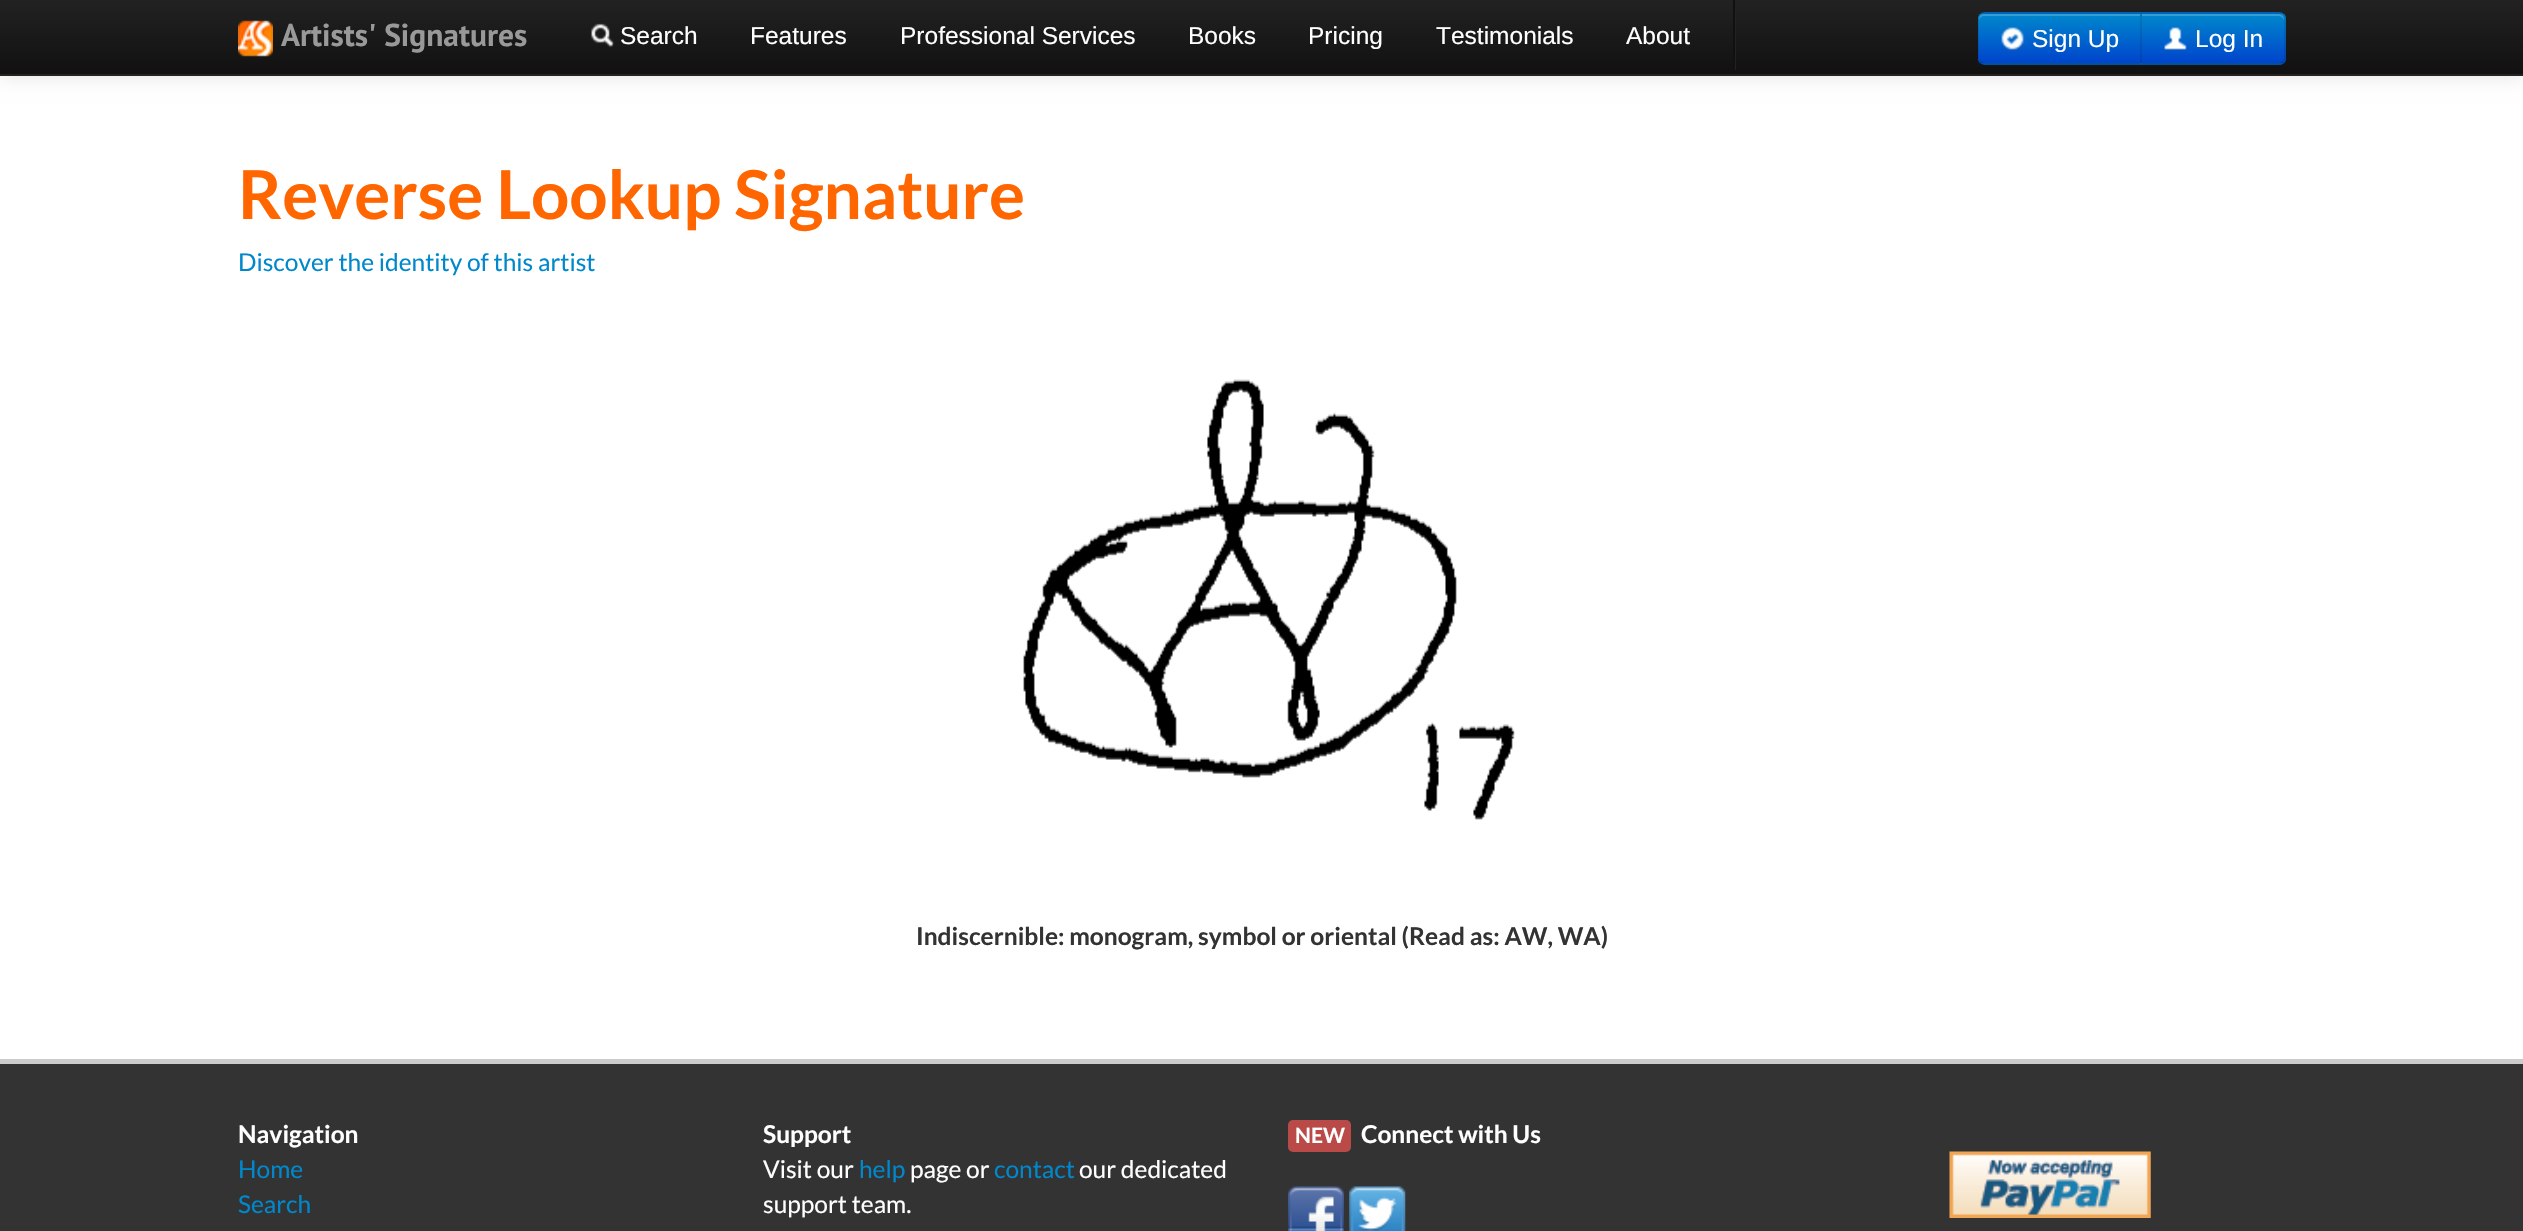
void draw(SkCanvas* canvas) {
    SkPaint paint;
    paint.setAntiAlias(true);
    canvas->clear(0xFFFFFFFF);
    paint.setColor(0x1A000000);
    paint.setMaskFilter(SkMaskFilter::MakeBlur(kNormal_SkBlurStyle, 9));
    canvas->drawRect(SkRect::MakeXYWH(0, 2, 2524, 75), paint);
    paint.setMaskFilter(nullptr);
    {
        const SkColor colors[] = {0xFF222222, 0xFF111111};
        const float stops[] = {0, 1};
        const SkPoint ends[] = {{1262, 0}, {1262, 74}};
        paint.setShader(SkGradientShader::MakeLinear(ends, colors, stops, 2, SkTileMode::kClamp));
        paint.setAlpha(255);
    }
    canvas->drawRect(SkRect::MakeXYWH(0, 0, 2523, 74), paint);
    paint.setShader(nullptr);
    paint.setColor(0xFF26221C);
    canvas->drawRect(SkRect::MakeXYWH(0, 74, 2523, 2), paint);
    canvas->drawImageRect(SkImages::DeferredFromEncodedData(SkData::MakeFromFileName("img1.png")), SkRect::MakeXYWH(238, 20, 35, 37), SkSamplingOptions());
    SkFont font1(fontMgr->matchFamilyStyle("PT Sans", SkFontStyle::Bold()), 31.5f);
    font1.setSubpixel(true);
    paint.setColor(0xFF999999);
    canvas->drawString("Artists' Signatures", 281, 46, font1, paint);
    canvas->drawImageRect(SkImages::DeferredFromEncodedData(SkData::MakeFromFileName("img2.png")), SkRect::MakeXYWH(591, 23, 24, 25), SkSamplingOptions());
    SkFont font2(fontMgr->matchFamilyStyle("Liberation Sans", SkFontStyle::Normal()), 24.5f);
    font2.setSubpixel(true);
    paint.setColor(0xFFFFFFFF);
    canvas->drawString("Search", 620, 44, font2, paint);
    canvas->drawString("Features", 750, 44, font2, paint);
    canvas->drawString("Professional Services", 900, 44, font2, paint);
    canvas->drawString("Books", 1188, 44, font2, paint);
    canvas->drawString("Pricing", 1308, 44, font2, paint);
    canvas->drawString("Testimonials", 1436, 44, font2, paint);
    canvas->drawString("About", 1626, 44, font2, paint);
    paint.setColor(0xFF222222);
    canvas->drawRect(SkRect::MakeXYWH(1735, 11, 1, 59), paint);
    paint.setColor(0xFF111111);
    canvas->drawRect(SkRect::MakeXYWH(1733, 0, 2, 70), paint);
    paint.setColor(0xFF006DCC);
    canvas->drawPath(SkPathBuilder().moveTo(1985, 12).lineTo(2142, 12).lineTo(2142, 65).lineTo(1985, 65).cubicTo(1981, 65, 1978, 62, 1978, 58).lineTo(1978, 19).cubicTo(1978, 15, 1981, 12, 1985, 12).close().detach(), paint);
    canvas->save();
    canvas->clipPath(SkPathBuilder().moveTo(1985, 12).lineTo(2142, 12).lineTo(2142, 65).lineTo(1985, 65).cubicTo(1981, 65, 1978, 62, 1978, 58).lineTo(1978, 19).cubicTo(1978, 15, 1981, 12, 1985, 12).close().detach(), true);
    {
        const SkColor colors[] = {0xFF0088CC, 0xFF0044CC};
        const float stops[] = {0, 1};
        const SkPoint ends[] = {{2060, 14}, {2060, 63}};
        paint.setShader(SkGradientShader::MakeLinear(ends, colors, stops, 2, SkTileMode::kClamp));
        paint.setAlpha(255);
    }
    canvas->drawRect(SkRect::MakeXYWH(1978, 14, 162, 49), paint);
    canvas->restore();
    paint.setShader(nullptr);
    paint.setColor(0x33FFFFFF);
    canvas->drawPath(SkPathBuilder().moveTo(1984, 16).lineTo(2140, 16).lineTo(2140, 14).lineTo(1984, 14).cubicTo(1981, 14, 1979, 16, 1979, 19).lineTo(1979, 21).cubicTo(1979, 18, 1982, 16, 1984, 16).close().detach(), paint);
    paint.setColor(0x1A000000);
    canvas->drawPath(SkPathBuilder().moveTo(1984, 14).lineTo(1981, 15).lineTo(1980, 14).lineTo(1982, 12).lineTo(2142, 12).lineTo(2140, 14).close().detach(), paint);
    paint.setColor(0x40000000);
    canvas->drawPath(SkPathBuilder().moveTo(2142, 65).lineTo(1982, 65).lineTo(1980, 63).lineTo(1981, 62).lineTo(1984, 63).lineTo(2140, 63).close().detach(), paint);
    paint.setColor(0x1A000000);
    canvas->drawPath(SkPathBuilder().moveTo(1980, 63).cubicTo(1979, 61, 1978, 60, 1978, 58).lineTo(1978, 19).cubicTo(1978, 17, 1979, 16, 1980, 14).lineTo(1981, 15).cubicTo(1980, 16, 1979, 18, 1979, 19).lineTo(1979, 58).cubicTo(1979, 59, 1980, 61, 1981, 62).close().detach(), paint);
    canvas->drawImageRect(SkImages::DeferredFromEncodedData(SkData::MakeFromFileName("img3.png")), SkRect::MakeXYWH(2001, 27, 24, 24), SkSamplingOptions());
    paint.setColor(0xFFFFFFFF);
    canvas->drawString("Sign Up", 2032, 47, font2, paint);
    paint.setColor(0xFF006DCC);
    canvas->drawPath(SkPathBuilder().moveTo(2140, 12).lineTo(2279, 12).cubicTo(2283, 12, 2286, 15, 2286, 19).lineTo(2286, 58).cubicTo(2286, 62, 2283, 65, 2279, 65).lineTo(2140, 65).close().detach(), paint);
    canvas->save();
    canvas->clipPath(SkPathBuilder().moveTo(2140, 12).lineTo(2279, 12).cubicTo(2283, 12, 2286, 15, 2286, 19).lineTo(2286, 58).cubicTo(2286, 62, 2283, 65, 2279, 65).lineTo(2140, 65).close().detach(), true);
    {
        const SkColor colors[] = {0xFF0088CC, 0xFF0044CC};
        const float stops[] = {0, 1};
        const SkPoint ends[] = {{2213, 14}, {2213, 63}};
        paint.setShader(SkGradientShader::MakeLinear(ends, colors, stops, 2, SkTileMode::kClamp));
        paint.setAlpha(255);
    }
    canvas->drawRect(SkRect::MakeXYWH(2140, 14, 146, 49), paint);
    canvas->restore();
    paint.setShader(nullptr);
    paint.setColor(0x33FFFFFF);
    canvas->drawPath(SkPathBuilder().moveTo(2142, 16).lineTo(2278, 16).cubicTo(2281, 16, 2284, 18, 2284, 21).lineTo(2284, 19).cubicTo(2284, 16, 2282, 14, 2279, 14).lineTo(2142, 14).close().detach(), paint);
    paint.setColor(0x1A000000);
    canvas->drawPath(SkPathBuilder().moveTo(2142, 14).lineTo(2140, 12).lineTo(2280, 12).lineTo(2284, 14).lineTo(2282, 15).cubicTo(2281, 15, 2280, 14, 2278, 14).close().detach(), paint);
    canvas->drawPath(SkPathBuilder().moveTo(2286, 60).lineTo(2284, 63).lineTo(2282, 62).cubicTo(2283, 61, 2284, 59, 2284, 58).lineTo(2284, 19).cubicTo(2284, 18, 2283, 16, 2282, 15).lineTo(2284, 14).lineTo(2286, 17).close().detach(), paint);
    paint.setColor(0x40000000);
    canvas->drawPath(SkPathBuilder().moveTo(2284, 63).lineTo(2280, 65).lineTo(2140, 65).lineTo(2142, 63).lineTo(2279, 63).lineTo(2282, 62).close().detach(), paint);
    paint.setColor(0x1A000000);
    canvas->drawPath(SkPathBuilder().moveTo(2140, 65).lineTo(2142, 63).lineTo(2142, 14).lineTo(2140, 12).close().detach(), paint);
    canvas->drawImageRect(SkImages::DeferredFromEncodedData(SkData::MakeFromFileName("img4.png")), SkRect::MakeXYWH(2164, 27, 23, 24), SkSamplingOptions());
    paint.setColor(0xFFFFFFFF);
    canvas->drawString("Log In", 2195, 47, font2, paint);
    SkFont font3(fontMgr->matchFamilyStyle("Lato", SkFontStyle::Bold()), 67.4f);
    font3.setSubpixel(true);
    paint.setColor(0xFFFF6600);
    canvas->drawString("Reverse Lookup Signature", 238, 219, font3, paint);
    SkFont font4(fontMgr->matchFamilyStyle("Lato", SkFontStyle::Normal()), 24.5f);
    font4.setSubpixel(true);
    paint.setColor(0xFF0088CC);
    canvas->drawString("Discover the identity of this artist", 238, 271, font4, paint);
    canvas->drawImageRect(SkImages::DeferredFromEncodedData(SkData::MakeFromFileName("img5.png")), SkRect::MakeXYWH(1023, 379, 492, 441), SkSamplingOptions());
    SkFont font5(fontMgr->matchFamilyStyle("Lato", SkFontStyle::Bold()), 24.5f);
    font5.setSubpixel(true);
    paint.setColor(0xFF333333);
    canvas->drawString("Indiscernible: monogram, symbol or oriental (Read as: AW, WA)", 916, 945, font5, paint);
    canvas->drawRect(SkRect::MakeXYWH(0, 1064, 2523, 167), paint);
    paint.setColor(0xFFCCCCCC);
    canvas->drawRect(SkRect::MakeXYWH(0, 1059, 2523, 5), paint);
    paint.setColor(0xFFFFFFFF);
    canvas->drawString("Navigation", 238, 1143, font5, paint);
    paint.setColor(0xFF0088CC);
    canvas->drawString("Home", 238, 1178, font4, paint);
    canvas->drawString("Search", 238, 1213, font4, paint);
    paint.setColor(0xFFFFFFFF);
    canvas->drawString("Support", 763, 1143, font5, paint);
    canvas->drawString("Visit our", 763, 1178, font4, paint);
    paint.setColor(0xFF0088CC);
    canvas->drawString("help", 859, 1178, font4, paint);
    paint.setColor(0xFFFFFFFF);
    canvas->drawString("page or", 910, 1178, font4, paint);
    paint.setColor(0xFF0088CC);
    canvas->drawString("contact", 994, 1178, font4, paint);
    paint.setColor(0xFFFFFFFF);
    canvas->drawString("our dedicated", 1079, 1178, font4, paint);
    canvas->drawString("support team.", 763, 1213, font4, paint);
    paint.setColor(0xFFB94A48);
    canvas->drawRoundRect(SkRect::MakeXYWH(1288, 1120, 63, 32), 5, 5, paint);
    SkFont font6(fontMgr->matchFamilyStyle("Lato", SkFontStyle::Bold()), 21);
    font6.setSubpixel(true);
    paint.setColor(0xFFFFFFFF);
    canvas->drawString("NEW", 1295, 1143, font6, paint);
    canvas->drawString("Connect with Us", 1361, 1143, font5, paint);
    canvas->drawImageRect(SkImages::DeferredFromEncodedData(SkData::MakeFromFileName("img6.png")), SkRect::MakeXYWH(1288, 1186, 56, 45), SkSamplingOptions());
    canvas->drawImageRect(SkImages::DeferredFromEncodedData(SkData::MakeFromFileName("img7.png")), SkRect::MakeXYWH(1349, 1186, 57, 45), SkSamplingOptions());
    canvas->drawImageRect(SkImages::DeferredFromEncodedData(SkData::MakeFromFileName("img8.png")), SkRect::MakeXYWH(1949, 1151, 202, 67), SkSamplingOptions());
}
